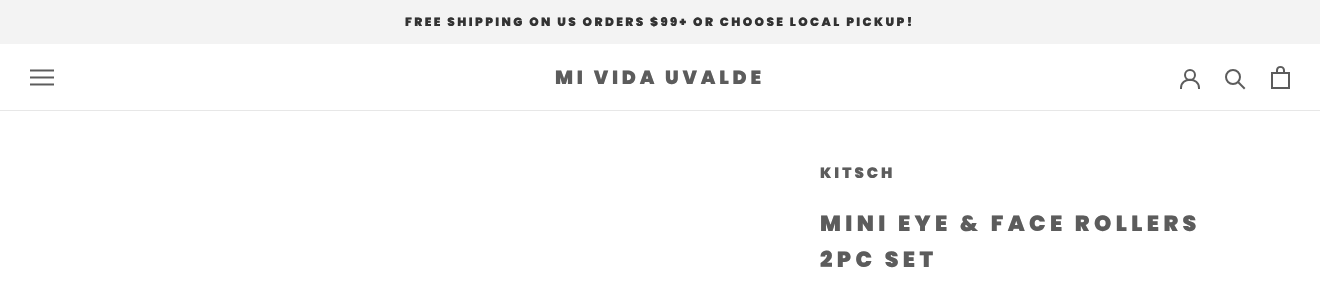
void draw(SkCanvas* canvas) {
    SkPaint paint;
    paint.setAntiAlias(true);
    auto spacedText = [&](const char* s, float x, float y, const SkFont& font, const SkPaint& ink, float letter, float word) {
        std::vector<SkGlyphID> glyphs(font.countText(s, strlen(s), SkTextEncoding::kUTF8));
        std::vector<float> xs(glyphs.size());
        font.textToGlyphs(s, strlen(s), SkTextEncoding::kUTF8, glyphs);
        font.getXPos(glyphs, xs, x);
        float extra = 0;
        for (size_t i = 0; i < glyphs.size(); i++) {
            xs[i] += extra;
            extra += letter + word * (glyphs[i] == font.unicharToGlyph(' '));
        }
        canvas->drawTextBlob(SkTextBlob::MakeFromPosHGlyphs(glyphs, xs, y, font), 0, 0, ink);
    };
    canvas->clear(0xFFFFFFFF);
    paint.setColor(0xFFF3F3F3);
    canvas->drawRect(SkRect::MakeXYWH(0, 0, 1320, 44), paint);
    SkFont font1(fontMgr->matchFamilyStyle("Poppins", SkFontStyle(900, SkFontStyle::kNormal_Width, SkFontStyle::kUpright_Slant)), 12);
    font1.setSubpixel(true);
    paint.setColor(0xFF323232);
    spacedText("FREE SHIPPING ON US ORDERS $99+ OR CHOOSE LOCAL PICKUP!", 405, 26, font1, paint, 2.4f, 0);
    paint.setColor(0xFFE7E7E7);
    canvas->drawRect(SkRect::MakeXYWH(0, 110, 1320, 1), paint);
    canvas->drawImageRect(SkImages::DeferredFromEncodedData(SkData::MakeFromFileName("img1.png")), SkRect::MakeXYWH(30, 69, 24, 17), SkSamplingOptions());
    SkFont font2(fontMgr->matchFamilyStyle("Poppins", SkFontStyle(900, SkFontStyle::kNormal_Width, SkFontStyle::kUpright_Slant)), 19);
    font2.setSubpixel(true);
    paint.setColor(0xFF5C5C5C);
    spacedText("MI VIDA UVALDE", 555, 84, font2, paint, 3.75f, 0);
    paint.setStyle(SkPaint::kStroke_Style);
    paint.setStrokeWidth(2);
    paint.setStrokeCap(SkPaint::kSquare_Cap);
    canvas->drawPath(SkPathBuilder().moveTo(1181, 88).cubicTo(1181, 77, 1199, 77, 1199, 88).detach(), paint);
    paint.setStrokeCap(SkPaint::kButt_Cap);
    canvas->drawCircle(1190, 75, 5, paint);
    paint.setStrokeCap(SkPaint::kSquare_Cap);
    canvas->drawPath(SkPathBuilder().moveTo(1244, 88).lineTo(1238.5f, 82.5f).detach(), paint);
    paint.setStrokeCap(SkPaint::kButt_Cap);
    canvas->drawCircle(1233, 77, 7, paint);
    canvas->drawImageRect(SkImages::DeferredFromEncodedData(SkData::MakeFromFileName("img2.png")), SkRect::MakeXYWH(1271, 66, 19, 23), SkSamplingOptions());
    SkFont font3(fontMgr->matchFamilyStyle("Poppins", SkFontStyle(900, SkFontStyle::kNormal_Width, SkFontStyle::kUpright_Slant)), 15);
    font3.setSubpixel(true);
    paint.setStyle(SkPaint::kFill_Style);
    spacedText("KITSCH", 820, 178, font3, paint, 3, 0);
    SkFont font4(fontMgr->matchFamilyStyle("Poppins", SkFontStyle(900, SkFontStyle::kNormal_Width, SkFontStyle::kUpright_Slant)), 22);
    font4.setSubpixel(true);
    spacedText("MINI EYE & FACE ROLLERS", 820, 231, font4, paint, 4.4f, 0);
    spacedText("2PC SET", 820, 267, font4, paint, 4.4f, 0);
}
